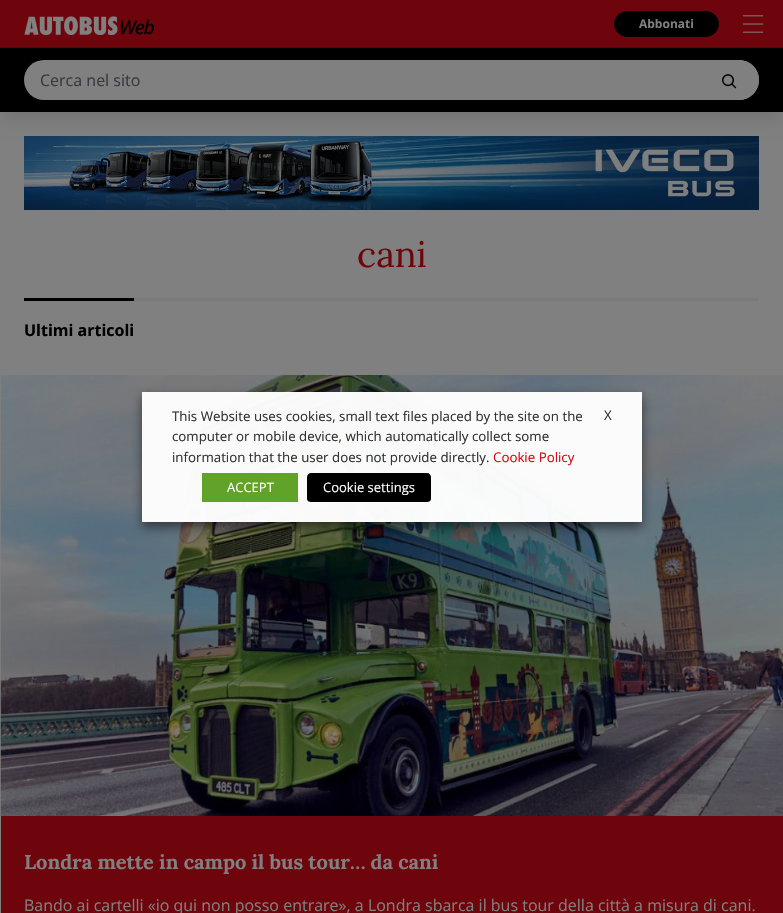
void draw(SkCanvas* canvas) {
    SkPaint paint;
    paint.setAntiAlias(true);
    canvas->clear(0xFF808080);
    paint.setColor(0x1A000000);
    paint.setMaskFilter(SkMaskFilter::MakeBlur(kNormal_SkBlurStyle, 7.5f));
    canvas->drawRect(SkRect::MakeXYWH(3, 61, 777, 58), paint);
    paint.setMaskFilter(nullptr);
    paint.setColor(0xFF6F050C);
    canvas->drawRect(SkRect::MakeXYWH(0, 0, 783, 47), paint);
    paint.setColor(0xFF59040A);
    canvas->drawRect(SkRect::MakeXYWH(0, 47, 783, 1), paint);
    canvas->drawImageRect(SkImages::DeferredFromEncodedData(SkData::MakeFromFileName("img1.png")), SkRect::MakeXYWH(24, 16, 130, 19), SkSamplingOptions());
    paint.setColor(0xFF000000);
    canvas->drawRoundRect(SkRect::MakeXYWH(614.5f, 11.5f, 104, 25), 12.5f, 12.5f, paint);
    paint.setStyle(SkPaint::kStroke_Style);
    paint.setStrokeWidth(1);
    canvas->drawRoundRect(SkRect::MakeXYWH(614.5f, 11.5f, 104, 25), 12.5f, 12.5f, paint);
    SkFont font1(fontMgr->matchFamilyStyle("Open Sans", SkFontStyle::Bold()), 12);
    font1.setSubpixel(true);
    paint.setStyle(SkPaint::kFill_Style);
    paint.setColor(0xFF808080);
    canvas->drawString("Abbonati", 639, 28, font1, paint);
    canvas->drawImageRect(SkImages::DeferredFromEncodedData(SkData::MakeFromFileName("img2.png")), SkRect::MakeXYWH(742, 15, 22, 18), SkSamplingOptions());
    paint.setColor(0xFF000000);
    canvas->drawRect(SkRect::MakeXYWH(0, 48, 783, 64), paint);
    paint.setColor(0xFF808080);
    canvas->drawRoundRect(SkRect::MakeXYWH(24, 60, 735, 40), 20, 20, paint);
    SkFont font2(fontMgr->matchFamilyStyle("Open Sans", SkFontStyle::Normal()), 16);
    font2.setSubpixel(true);
    paint.setColor(0xFF363940);
    canvas->drawString("Cerca nel sito", 40, 86, font2, paint);
    paint.setColor(0xFF808080);
    canvas->drawPath(SkPathBuilder().moveTo(711, 60).lineTo(739, 60).cubicTo(750, 60, 759, 69, 759, 80).cubicTo(759, 91, 750, 100, 739, 100).lineTo(711, 100).close().detach(), paint);
    canvas->drawImageRect(SkImages::DeferredFromEncodedData(SkData::MakeFromFileName("img3.png")), SkRect::MakeXYWH(722, 74, 15, 15), SkSamplingOptions());
    canvas->drawImageRect(SkImages::DeferredFromEncodedData(SkData::MakeFromFileName("img4.png")), SkRect::MakeXYWH(24, 136, 735, 74), SkSamplingOptions());
    SkFont font3(fontMgr->matchFamilyStyle("Lora", SkFontStyle::Normal()), 36);
    font3.setSubpixel(true);
    paint.setColor(0xFF6F050C);
    canvas->drawString("cani", 357, 267, font3, paint);
    paint.setColor(0xFF7A7A7B);
    canvas->drawRect(SkRect::MakeXYWH(134, 298, 625, 3), paint);
    paint.setColor(0xFF000000);
    canvas->drawRect(SkRect::MakeXYWH(24, 298, 110, 3), paint);
    SkFont font4(fontMgr->matchFamilyStyle("Open Sans", SkFontStyle::Bold()), 16);
    font4.setSubpixel(true);
    canvas->drawString("Ultimi articoli", 24, 336, font4, paint);
    canvas->drawImageRect(SkImages::DeferredFromEncodedData(SkData::MakeFromFileName("img5.png")), SkRect::MakeXYWH(0, 375, 783, 441), SkSamplingOptions());
    paint.setColor(0xFF6F050C);
    canvas->drawRect(SkRect::MakeXYWH(1, 816, 782, 97), paint);
    SkFont font5(fontMgr->matchFamilyStyle("Lora", SkFontStyle::Bold()), 20);
    font5.setSubpixel(true);
    paint.setColor(0xFF808080);
    canvas->drawString("Londra mette in campo il bus tour… da cani", 24, 869, font5, paint);
    canvas->drawString("Bando ai cartelli «io qui non posso entrare», a Londra sbarca il bus tour della città a misura di cani.", 24, 911, font2, paint);
    canvas->save();
    canvas->clipPath(SkPathBuilder(SkPathFillType::kEvenOdd).moveTo(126, 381).lineTo(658, 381).lineTo(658, 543).lineTo(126, 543).close().moveTo(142, 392).lineTo(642, 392).lineTo(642, 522).lineTo(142, 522).close().detach(), true);
    paint.setColor(0x80000000);
    paint.setMaskFilter(SkMaskFilter::MakeBlur(kNormal_SkBlurStyle, 5));
    canvas->drawRect(SkRect::MakeXYWH(142, 397, 500, 130), paint);
    paint.setMaskFilter(nullptr);
    canvas->restore();
    paint.setColor(0xF7FFFFFF);
    canvas->drawRect(SkRect::MakeXYWH(142, 392, 500, 130), paint);
    SkFont font6(fontMgr->matchFamilyStyle("Open Sans", SkFontStyle::Normal()), 13.3f);
    font6.setSubpixel(true);
    paint.setColor(0xFF333333);
    canvas->drawString("This Website uses cookies, small text files placed by the site on the", 172, 421, font6, paint);
    canvas->drawString("computer or mobile device, which automatically collect some", 172, 441, font6, paint);
    canvas->drawString("information that the user does not provide directly.", 172, 462, font6, paint);
    paint.setColor(0xFFDD0918);
    canvas->drawString("Cookie Policy", 493, 462, font6, paint);
    paint.setColor(0xFF61A229);
    canvas->drawRect(SkRect::MakeXYWH(202, 473, 96, 29), paint);
    SkFont font7(fontMgr->matchFamilyStyle("Open Sans", SkFontStyle::Normal()), 13);
    font7.setSubpixel(true);
    paint.setColor(0xFFFFFFFF);
    canvas->drawString("ACCEPT", 227, 492, font7, paint);
    paint.setColor(0xFF000000);
    canvas->drawPath(SkPathBuilder().moveTo(311, 473).lineTo(427, 473).cubicTo(429, 473, 431, 475, 431, 477).lineTo(431, 499).cubicTo(431, 501, 429, 502, 427, 502).lineTo(311, 502).cubicTo(309, 502, 307, 501, 307, 499).lineTo(307, 477).cubicTo(307, 475, 309, 473, 311, 473).close().detach(), paint);
    paint.setColor(0xFFFFFFFF);
    canvas->drawRect(SkRect::MakeXYWH(309, 502, 120, 1), paint);
    canvas->drawString("Cookie settings", 323, 492, font7, paint);
    paint.setColor(0xFF333333);
    canvas->drawString("X", 604, 420, font6, paint);
}
